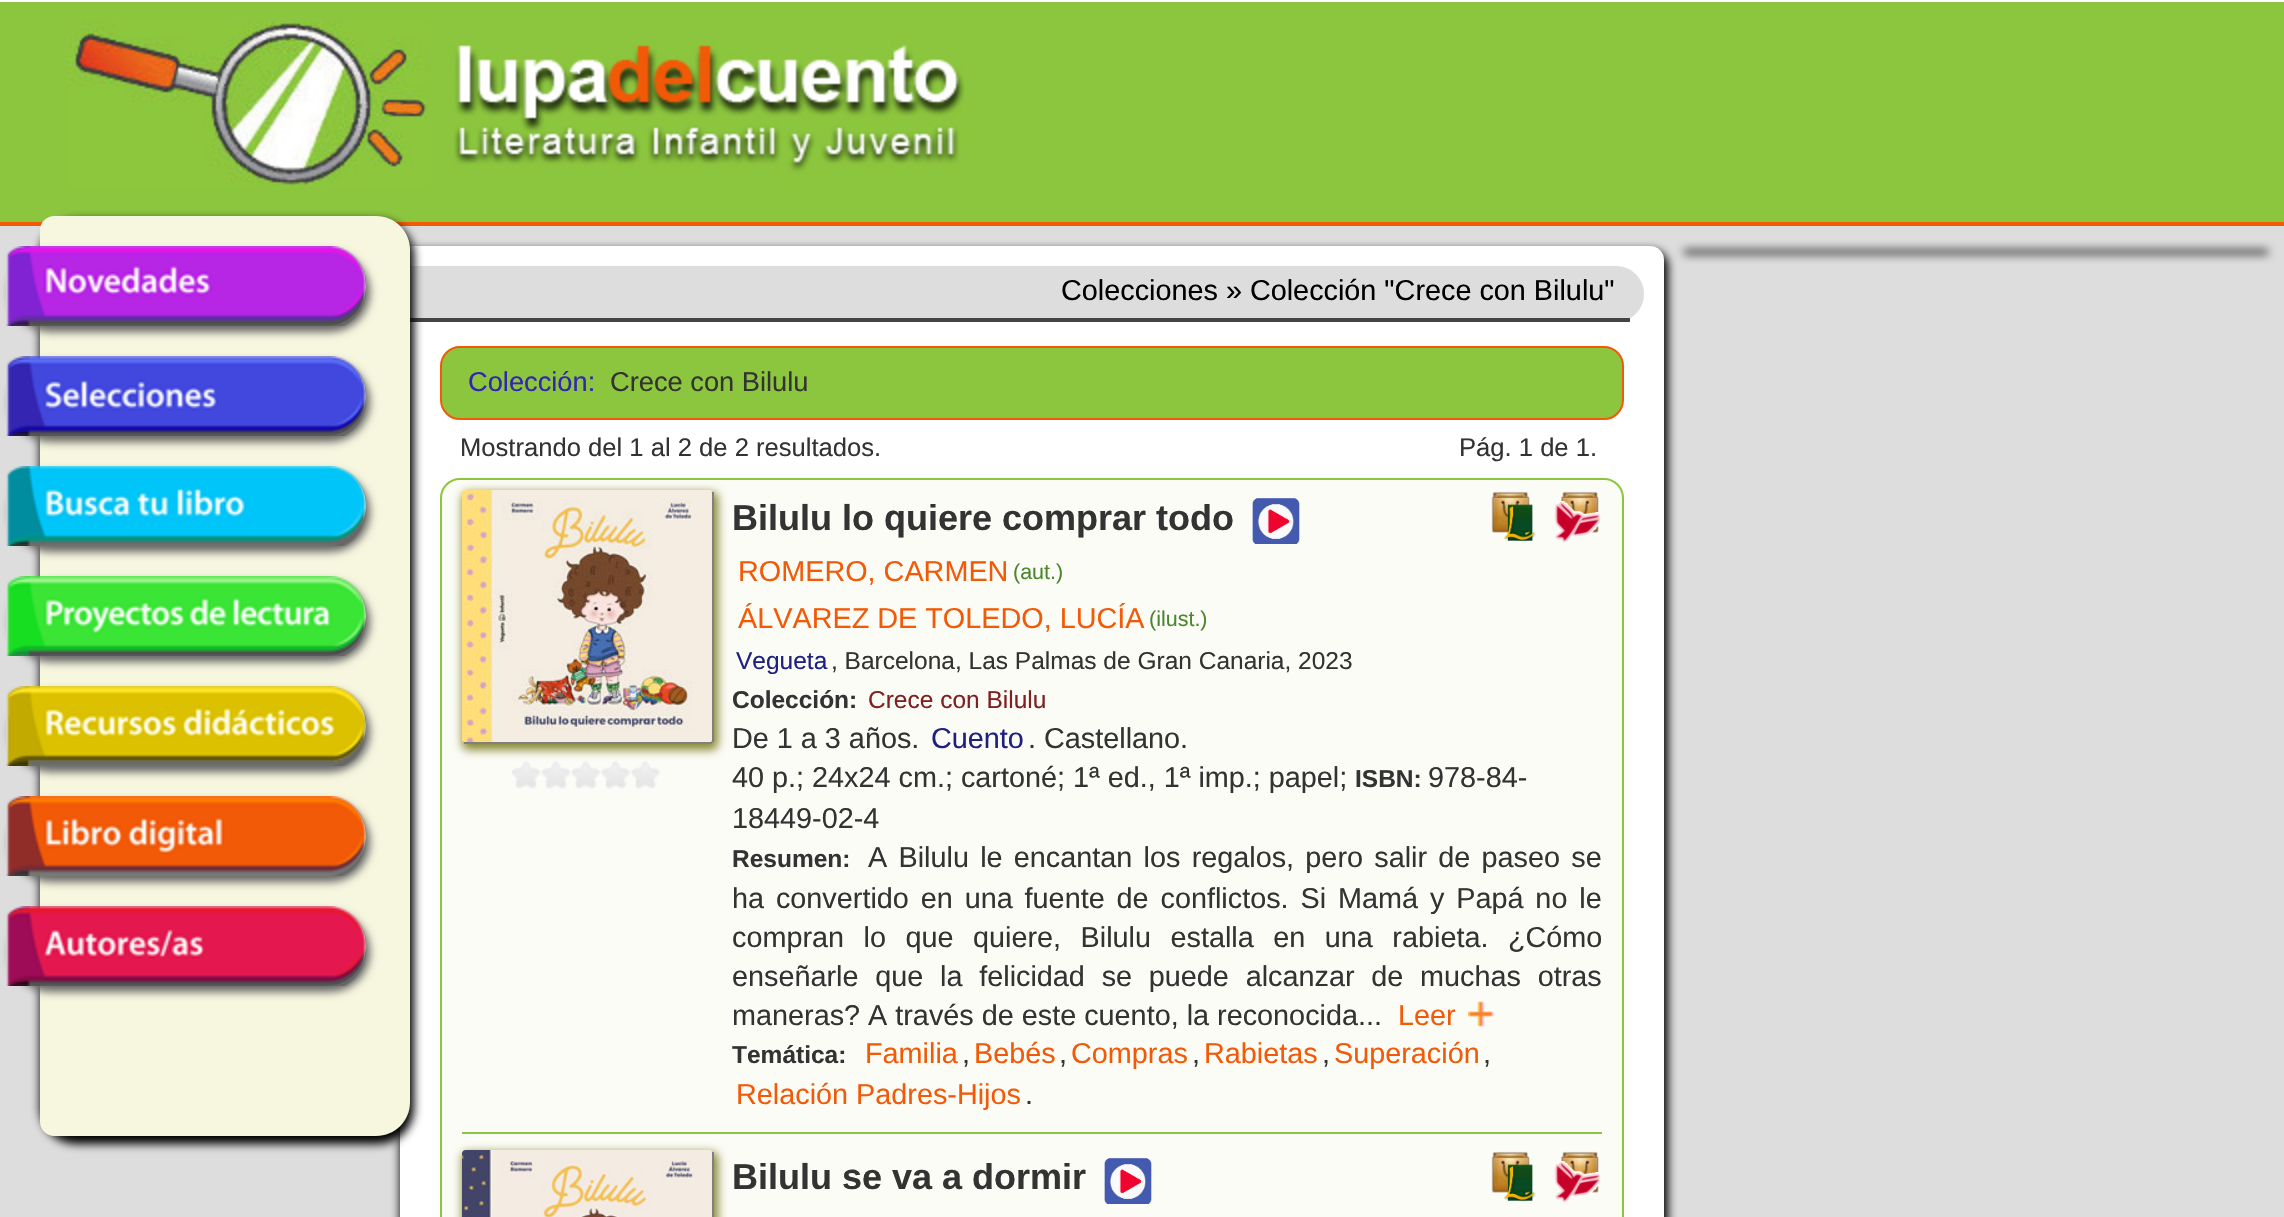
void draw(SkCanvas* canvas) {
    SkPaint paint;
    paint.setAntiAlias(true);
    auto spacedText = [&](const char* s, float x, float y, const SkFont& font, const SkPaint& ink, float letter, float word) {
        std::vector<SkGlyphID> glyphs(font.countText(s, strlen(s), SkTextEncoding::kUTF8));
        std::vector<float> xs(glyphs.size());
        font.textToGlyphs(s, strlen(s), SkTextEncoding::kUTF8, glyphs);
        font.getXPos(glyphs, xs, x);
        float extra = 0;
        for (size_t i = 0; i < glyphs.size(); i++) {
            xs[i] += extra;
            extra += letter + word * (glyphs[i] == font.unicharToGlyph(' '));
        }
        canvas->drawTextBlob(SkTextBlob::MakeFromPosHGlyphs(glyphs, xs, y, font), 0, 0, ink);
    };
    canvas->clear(0xFFDDDDDD);
    paint.setColor(0xFF8CC63E);
    canvas->drawRect(SkRect::MakeXYWH(0, 2, 2284, 220), paint);
    paint.setColor(0xFFFFFFFF);
    canvas->drawRect(SkRect::MakeXYWH(0, 0, 2284, 2), paint);
    paint.setColor(0xFFF25A07);
    canvas->drawRect(SkRect::MakeXYWH(0, 222, 2284, 4), paint);
    canvas->drawImageRect(SkImages::DeferredFromEncodedData(SkData::MakeFromFileName("img1.png")), SkRect::MakeXYWH(67, 22, 898, 164), SkSamplingOptions());
    paint.setColor(0xFF000000);
    paint.setMaskFilter(SkMaskFilter::MakeBlur(kNormal_SkBlurStyle, 5));
    canvas->drawRoundRect(SkRect::MakeXYWH(400, 250, 1268, 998), 16, 16, paint);
    paint.setMaskFilter(nullptr);
    paint.setColor(0xFFFFFFFF);
    canvas->drawRoundRect(SkRect::MakeXYWH(400, 246, 1264, 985), 14, 14, paint);
    paint.setColor(0xFFDDDDDD);
    canvas->drawPath(SkPathBuilder().moveTo(400, 266).lineTo(1616, 266).cubicTo(1631.5f, 266, 1644, 278.5f, 1644, 294).cubicTo(1644, 309.5f, 1631.5f, 322, 1616, 322).lineTo(400, 322).close().detach(), paint);
    paint.setColor(0xFF444444);
    canvas->drawRect(SkRect::MakeXYWH(410, 318, 1220, 4), paint);
    paint.setColor(0xFF000000);
    paint.setMaskFilter(SkMaskFilter::MakeBlur(kNormal_SkBlurStyle, 5));
    canvas->drawRoundRect(SkRect::MakeXYWH(40, 220, 374, 924), 36, 36, paint);
    paint.setMaskFilter(nullptr);
    paint.setColor(0xFFF7F7E0);
    canvas->drawPath(SkPathBuilder().moveTo(54, 216).lineTo(376, 216).cubicTo(395, 216, 410, 231, 410, 250).lineTo(410, 1102).cubicTo(410, 1121, 395, 1136, 376, 1136).lineTo(54, 1136).cubicTo(46.5f, 1136, 40, 1129.5f, 40, 1122).lineTo(40, 230).cubicTo(40, 222.5f, 46.5f, 216, 54, 216).close().detach(), paint);
    canvas->drawImageRect(SkImages::DeferredFromEncodedData(SkData::MakeFromFileName("img2.png")), SkRect::MakeXYWH(6, 246, 360, 80), SkSamplingOptions());
    canvas->save();
    canvas->clipPath(SkPathBuilder(SkPathFillType::kEvenOdd).moveTo(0, 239).lineTo(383, 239).lineTo(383, 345).lineTo(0, 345).close().moveTo(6, 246).lineTo(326, 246).cubicTo(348, 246, 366, 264, 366, 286).cubicTo(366, 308, 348, 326, 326, 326).lineTo(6, 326).close().detach(), true);
    paint.setColor(0xFF666666);
    paint.setMaskFilter(SkMaskFilter::MakeBlur(kNormal_SkBlurStyle, 4));
    canvas->drawRoundRect(SkRect::MakeXYWH(10, 252, 360, 80), 40, 40, paint);
    paint.setMaskFilter(nullptr);
    canvas->restore();
    canvas->drawImageRect(SkImages::DeferredFromEncodedData(SkData::MakeFromFileName("img3.png")), SkRect::MakeXYWH(6, 356, 360, 80), SkSamplingOptions());
    canvas->save();
    canvas->clipPath(SkPathBuilder(SkPathFillType::kEvenOdd).moveTo(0, 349).lineTo(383, 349).lineTo(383, 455).lineTo(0, 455).close().moveTo(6, 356).lineTo(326, 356).cubicTo(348, 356, 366, 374, 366, 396).cubicTo(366, 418, 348, 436, 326, 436).lineTo(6, 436).close().detach(), true);
    paint.setMaskFilter(SkMaskFilter::MakeBlur(kNormal_SkBlurStyle, 4));
    canvas->drawRoundRect(SkRect::MakeXYWH(10, 362, 360, 80), 40, 40, paint);
    paint.setMaskFilter(nullptr);
    canvas->restore();
    canvas->drawImageRect(SkImages::DeferredFromEncodedData(SkData::MakeFromFileName("img4.png")), SkRect::MakeXYWH(6, 466, 360, 80), SkSamplingOptions());
    canvas->save();
    canvas->clipPath(SkPathBuilder(SkPathFillType::kEvenOdd).moveTo(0, 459).lineTo(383, 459).lineTo(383, 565).lineTo(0, 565).close().moveTo(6, 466).lineTo(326, 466).cubicTo(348, 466, 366, 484, 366, 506).cubicTo(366, 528, 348, 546, 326, 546).lineTo(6, 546).close().detach(), true);
    paint.setMaskFilter(SkMaskFilter::MakeBlur(kNormal_SkBlurStyle, 4));
    canvas->drawRoundRect(SkRect::MakeXYWH(10, 472, 360, 80), 40, 40, paint);
    paint.setMaskFilter(nullptr);
    canvas->restore();
    canvas->drawImageRect(SkImages::DeferredFromEncodedData(SkData::MakeFromFileName("img5.png")), SkRect::MakeXYWH(6, 576, 360, 80), SkSamplingOptions());
    canvas->save();
    canvas->clipPath(SkPathBuilder(SkPathFillType::kEvenOdd).moveTo(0, 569).lineTo(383, 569).lineTo(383, 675).lineTo(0, 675).close().moveTo(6, 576).lineTo(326, 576).cubicTo(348, 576, 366, 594, 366, 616).cubicTo(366, 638, 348, 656, 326, 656).lineTo(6, 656).close().detach(), true);
    paint.setMaskFilter(SkMaskFilter::MakeBlur(kNormal_SkBlurStyle, 4));
    canvas->drawRoundRect(SkRect::MakeXYWH(10, 582, 360, 80), 40, 40, paint);
    paint.setMaskFilter(nullptr);
    canvas->restore();
    canvas->drawImageRect(SkImages::DeferredFromEncodedData(SkData::MakeFromFileName("img6.png")), SkRect::MakeXYWH(6, 686, 360, 80), SkSamplingOptions());
    canvas->save();
    canvas->clipPath(SkPathBuilder(SkPathFillType::kEvenOdd).moveTo(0, 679).lineTo(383, 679).lineTo(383, 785).lineTo(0, 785).close().moveTo(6, 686).lineTo(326, 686).cubicTo(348, 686, 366, 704, 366, 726).cubicTo(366, 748, 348, 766, 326, 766).lineTo(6, 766).close().detach(), true);
    paint.setMaskFilter(SkMaskFilter::MakeBlur(kNormal_SkBlurStyle, 4));
    canvas->drawRoundRect(SkRect::MakeXYWH(10, 692, 360, 80), 40, 40, paint);
    paint.setMaskFilter(nullptr);
    canvas->restore();
    canvas->drawImageRect(SkImages::DeferredFromEncodedData(SkData::MakeFromFileName("img7.png")), SkRect::MakeXYWH(6, 796, 360, 80), SkSamplingOptions());
    canvas->save();
    canvas->clipPath(SkPathBuilder(SkPathFillType::kEvenOdd).moveTo(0, 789).lineTo(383, 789).lineTo(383, 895).lineTo(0, 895).close().moveTo(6, 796).lineTo(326, 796).cubicTo(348, 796, 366, 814, 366, 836).cubicTo(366, 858, 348, 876, 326, 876).lineTo(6, 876).close().detach(), true);
    paint.setMaskFilter(SkMaskFilter::MakeBlur(kNormal_SkBlurStyle, 4));
    canvas->drawRoundRect(SkRect::MakeXYWH(10, 802, 360, 80), 40, 40, paint);
    paint.setMaskFilter(nullptr);
    canvas->restore();
    canvas->drawImageRect(SkImages::DeferredFromEncodedData(SkData::MakeFromFileName("img8.png")), SkRect::MakeXYWH(6, 906, 360, 80), SkSamplingOptions());
    canvas->save();
    canvas->clipPath(SkPathBuilder(SkPathFillType::kEvenOdd).moveTo(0, 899).lineTo(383, 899).lineTo(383, 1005).lineTo(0, 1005).close().moveTo(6, 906).lineTo(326, 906).cubicTo(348, 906, 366, 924, 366, 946).cubicTo(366, 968, 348, 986, 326, 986).lineTo(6, 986).close().detach(), true);
    paint.setMaskFilter(SkMaskFilter::MakeBlur(kNormal_SkBlurStyle, 4));
    canvas->drawRoundRect(SkRect::MakeXYWH(10, 912, 360, 80), 40, 40, paint);
    paint.setMaskFilter(nullptr);
    canvas->restore();
    paint.setColor(0xFF000000);
    paint.setMaskFilter(SkMaskFilter::MakeBlur(kNormal_SkBlurStyle, 5));
    canvas->drawRect(SkRect::MakeXYWH(1684, 250, 584, 4), paint);
    paint.setMaskFilter(nullptr);
    SkFont font1(fontMgr->matchFamilyStyle("Liberation Sans", SkFontStyle::Normal()), 28.8f);
    font1.setSubpixel(true);
    canvas->drawString("Colecciones » Colección \"Crece con Bilulu\"", 1061, 300, font1, paint);
    paint.setColor(0xFF8CC63E);
    canvas->drawRoundRect(SkRect::MakeXYWH(441, 347, 1182, 72), 19, 19, paint);
    paint.setStyle(SkPaint::kStroke_Style);
    paint.setStrokeWidth(2);
    paint.setColor(0xFFF25A07);
    canvas->drawRoundRect(SkRect::MakeXYWH(441, 347, 1182, 72), 19, 19, paint);
    SkFont font2(fontMgr->matchFamilyStyle("Liberation Sans", SkFontStyle::Normal()), 27.25f);
    font2.setSubpixel(true);
    paint.setStyle(SkPaint::kFill_Style);
    paint.setColor(0xFF3324B2);
    canvas->drawString("Colección:", 468, 391, font2, paint);
    paint.setColor(0xFF333333);
    canvas->drawString("Crece con Bilulu", 610, 391, font2, paint);
    SkFont font3(fontMgr->matchFamilyStyle("Liberation Sans", SkFontStyle::Normal()), 25.6f);
    font3.setSubpixel(true);
    canvas->drawString("Mostrando del 1 al 2 de 2 resultados.", 460, 456, font3, paint);
    canvas->drawString("Pág. 1 de 1.", 1459, 456, font3, paint);
    paint.setColor(0xFFFCFCF7);
    canvas->drawRoundRect(SkRect::MakeXYWH(441, 479, 1182, 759), 19, 19, paint);
    paint.setStyle(SkPaint::kStroke_Style);
    paint.setColor(0xFF8CC63E);
    canvas->drawRoundRect(SkRect::MakeXYWH(441, 479, 1182, 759), 19, 19, paint);
    paint.setStyle(SkPaint::kFill_Style);
    canvas->drawRect(SkRect::MakeXYWH(462, 1132, 1140, 2), paint);
    canvas->drawImageRect(SkImages::DeferredFromEncodedData(SkData::MakeFromFileName("img10.png")), SkRect::MakeXYWH(512, 760, 148, 29), SkSamplingOptions());
    paint.setColor(0xFF888833);
    paint.setMaskFilter(SkMaskFilter::MakeBlur(kNormal_SkBlurStyle, 5));
    canvas->drawRoundRect(SkRect::MakeXYWH(462, 492, 256, 258), 6, 6, paint);
    paint.setMaskFilter(nullptr);
    canvas->drawImageRect(SkImages::DeferredFromEncodedData(SkData::MakeFromFileName("img9.png")), SkRect::MakeXYWH(462, 490, 250, 252), SkSamplingOptions());
    paint.setColor(0xFF808080);
    canvas->drawRect(SkRect::MakeXYWH(712, 492, 2, 250), paint);
    canvas->drawRect(SkRect::MakeXYWH(464, 742, 248, 2), paint);
    SkFont font4(fontMgr->matchFamilyStyle("Liberation Sans", SkFontStyle::Bold()), 36);
    font4.setSubpixel(true);
    paint.setColor(0xFF333333);
    canvas->drawString("Bilulu lo quiere comprar todo", 732, 530, font4, paint);
    canvas->drawImageRect(SkImages::DeferredFromEncodedData(SkData::MakeFromFileName("img11.png")), SkRect::MakeXYWH(1252, 498, 48, 46), SkSamplingOptions());
    canvas->drawImageRect(SkImages::DeferredFromEncodedData(SkData::MakeFromFileName("img12.png")), SkRect::MakeXYWH(1491, 491, 45, 51), SkSamplingOptions());
    canvas->drawImageRect(SkImages::DeferredFromEncodedData(SkData::MakeFromFileName("img13.png")), SkRect::MakeXYWH(1554, 491, 47, 52), SkSamplingOptions());
    paint.setColor(0xFFF25A07);
    canvas->drawString("ROMERO, CARMEN", 738, 581, font1, paint);
    SkFont font5(fontMgr->matchFamilyStyle("Liberation Sans", SkFontStyle::Normal()), 21.5f);
    font5.setSubpixel(true);
    paint.setColor(0xFF4C862E);
    canvas->drawString("(aut.)", 1013, 579, font5, paint);
    paint.setColor(0xFFF25A07);
    canvas->drawString("ÁLVAREZ DE TOLEDO, LUCÍA", 738, 628, font1, paint);
    paint.setColor(0xFF4C862E);
    canvas->drawString("(ilust.)", 1149, 626, font5, paint);
    SkFont font6(fontMgr->matchFamilyStyle("Liberation Sans", SkFontStyle::Normal()), 24.5f);
    font6.setSubpixel(true);
    paint.setColor(0xFF202080);
    canvas->drawString("Vegueta", 736, 669, font6, paint);
    paint.setColor(0xFF333333);
    canvas->drawString(", Barcelona, Las Palmas de Gran Canaria, 2023", 831, 669, font6, paint);
    SkFont font7(fontMgr->matchFamilyStyle("Liberation Sans", SkFontStyle::Bold()), 24.5f);
    font7.setSubpixel(true);
    canvas->drawString("Colección:", 732, 708, font7, paint);
    paint.setColor(0xFF802020);
    canvas->drawString("Crece con Bilulu", 868, 708, font6, paint);
    paint.setColor(0xFF333333);
    canvas->drawString("De 1 a 3 años.", 732, 748, font1, paint);
    paint.setColor(0xFF202080);
    canvas->drawString("Cuento", 931, 748, font1, paint);
    paint.setColor(0xFF333333);
    canvas->drawString(". Castellano.", 1028, 748, font1, paint);
    canvas->drawString("40 p.; 24x24 cm.; cartoné; 1ª ed., 1ª imp.; papel;", 732, 787, font1, paint);
    canvas->drawString("ISBN:", 1355, 787, font7, paint);
    canvas->drawString("978-84-", 1428, 787, font1, paint);
    canvas->drawString("18449-02-4", 732, 828, font1, paint);
    canvas->drawString("Resumen:", 732, 867, font7, paint);
    spacedText("A Bilulu le encantan los regalos, pero salir de paseo se", 868, 867, font1, paint, 0, 3.25f);
    spacedText("ha convertido en una fuente de conflictos. Si Mamá y Papá no le", 732, 908, font1, paint, 0, 3.9f);
    spacedText("compran lo que quiere, Bilulu estalla en una rabieta. ¿Cómo", 732, 947, font1, paint, 0, 11.5f);
    spacedText("enseñarle que la felicidad se puede alcanzar de muchas otras", 732, 986, font1, paint, 0, 8.75f);
    canvas->drawString("maneras? A través de este cuento, la reconocida", 732, 1025, font1, paint);
    canvas->drawString("...", 1358, 1025, font1, paint);
    canvas->drawImageRect(SkImages::DeferredFromEncodedData(SkData::MakeFromFileName("img14.png")), SkRect::MakeXYWH(1468, 1001, 27, 26), SkSamplingOptions());
    paint.setColor(0xFFF25A07);
    canvas->drawString("Leer", 1398, 1025, font1, paint);
    paint.setColor(0xFF333333);
    canvas->drawString("Temática:", 732, 1063, font7, paint);
    paint.setColor(0xFFF25A07);
    canvas->drawString("Familia", 865, 1063, font1, paint);
    paint.setColor(0xFF333333);
    canvas->drawString(",", 962, 1063, font1, paint);
    paint.setColor(0xFFF25A07);
    canvas->drawString("Bebés", 974, 1063, font1, paint);
    paint.setColor(0xFF333333);
    canvas->drawString(",", 1059, 1063, font1, paint);
    paint.setColor(0xFFF25A07);
    canvas->drawString("Compras", 1071, 1063, font1, paint);
    paint.setColor(0xFF333333);
    canvas->drawString(",", 1192, 1063, font1, paint);
    paint.setColor(0xFFF25A07);
    canvas->drawString("Rabietas", 1204, 1063, font1, paint);
    paint.setColor(0xFF333333);
    canvas->drawString(",", 1322, 1063, font1, paint);
    paint.setColor(0xFFF25A07);
    canvas->drawString("Superación", 1334, 1063, font1, paint);
    paint.setColor(0xFF333333);
    canvas->drawString(",", 1483, 1063, font1, paint);
    paint.setColor(0xFFF25A07);
    canvas->drawString("Relación Padres-Hijos", 736, 1104, font1, paint);
    paint.setColor(0xFF333333);
    canvas->drawString(".", 1025, 1104, font1, paint);
    paint.setColor(0xFF888833);
    paint.setMaskFilter(SkMaskFilter::MakeBlur(kNormal_SkBlurStyle, 5));
    canvas->drawRoundRect(SkRect::MakeXYWH(462, 1152, 256, 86), 6, 6, paint);
    paint.setMaskFilter(nullptr);
    canvas->drawImageRect(SkImages::DeferredFromEncodedData(SkData::MakeFromFileName("img15.png")), SkRect::MakeXYWH(462, 1150, 250, 67), SkSamplingOptions());
    paint.setColor(0xFF808080);
    canvas->drawRect(SkRect::MakeXYWH(712, 1152, 2, 65), paint);
    paint.setColor(0xFF333333);
    canvas->drawString("Bilulu se va a dormir", 732, 1189, font4, paint);
    canvas->drawImageRect(SkImages::DeferredFromEncodedData(SkData::MakeFromFileName("img16.png")), SkRect::MakeXYWH(1104, 1158, 48, 46), SkSamplingOptions());
    canvas->drawImageRect(SkImages::DeferredFromEncodedData(SkData::MakeFromFileName("img12.png")), SkRect::MakeXYWH(1491, 1151, 45, 51), SkSamplingOptions());
    canvas->drawImageRect(SkImages::DeferredFromEncodedData(SkData::MakeFromFileName("img13.png")), SkRect::MakeXYWH(1554, 1151, 47, 52), SkSamplingOptions());
}
